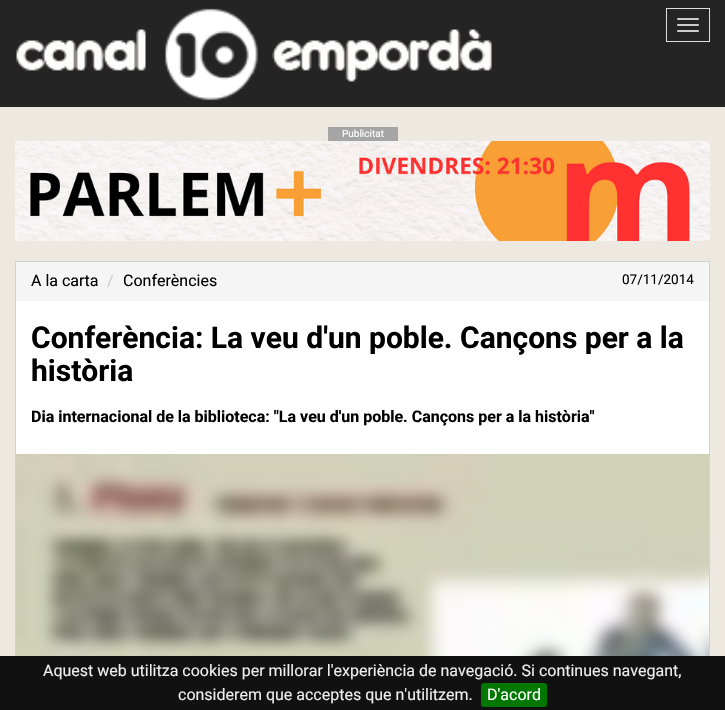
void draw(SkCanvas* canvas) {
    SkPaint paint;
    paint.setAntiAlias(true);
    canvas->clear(0xFFEDE9E1);
    paint.setColor(0xFF242424);
    canvas->drawRect(SkRect::MakeXYWH(0, 0, 725, 107), paint);
    canvas->drawImageRect(SkImages::DeferredFromEncodedData(SkData::MakeFromFileName("img1.png")), SkRect::MakeXYWH(16, 8, 476, 93), SkSamplingOptions());
    paint.setStyle(SkPaint::kStroke_Style);
    paint.setStrokeWidth(1);
    paint.setColor(0xFFDDDDDD);
    canvas->drawRect(SkRect::MakeXYWH(666.5f, 8.5f, 43, 33), paint);
    paint.setStyle(SkPaint::kFill_Style);
    paint.setColor(0xFFCCCCCC);
    canvas->drawRoundRect(SkRect::MakeXYWH(677, 18, 22, 2), 1, 1, paint);
    canvas->drawRoundRect(SkRect::MakeXYWH(677, 24, 22, 2), 1, 1, paint);
    canvas->drawRoundRect(SkRect::MakeXYWH(677, 30, 22, 2), 1, 1, paint);
    paint.setColor(0xFFA5A5A5);
    canvas->drawRect(SkRect::MakeXYWH(328, 127, 70, 14), paint);
    SkFont font1(fontMgr->matchFamilyStyle("Roboto", SkFontStyle::Normal()), 10);
    font1.setSubpixel(true);
    paint.setColor(0xFFFFFFFF);
    canvas->drawString("Publicitat", 342, 137, font1, paint);
    canvas->drawImageRect(SkImages::DeferredFromEncodedData(SkData::MakeFromFileName("img2.png")), SkRect::MakeXYWH(15, 141, 695, 100), SkSamplingOptions());
    canvas->drawRect(SkRect::MakeXYWH(16, 301, 693, 153), paint);
    paint.setStyle(SkPaint::kStroke_Style);
    paint.setColor(0xFFD1D1D1);
    canvas->drawRect(SkRect::MakeXYWH(15.5f, 261.5f, 694, 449), paint);
    paint.setStyle(SkPaint::kFill_Style);
    paint.setColor(0xFFF5F5F5);
    canvas->drawRect(SkRect::MakeXYWH(16, 262, 693, 39), paint);
    SkFont font2(fontMgr->matchFamilyStyle("Roboto", SkFontStyle::Normal()), 16);
    font2.setSubpixel(true);
    paint.setColor(0xFF000000);
    canvas->drawString("A la carta", 31, 286, font2, paint);
    paint.setColor(0xFFCCCCCC);
    canvas->drawString("/", 107, 286, font2, paint);
    paint.setColor(0xFF000000);
    canvas->drawString("Conferències", 123, 286, font2, paint);
    SkFont font3(fontMgr->matchFamilyStyle("Roboto", SkFontStyle::Normal()), 13.5f);
    font3.setSubpixel(true);
    canvas->drawString("07/11/2014", 622, 284, font3, paint);
    SkFont font4(fontMgr->matchFamilyStyle("Roboto", SkFontStyle::Bold()), 30);
    font4.setSubpixel(true);
    canvas->drawString("Conferència: La veu d'un poble. Cançons per a la", 31, 348, font4, paint);
    canvas->drawString("història", 31, 381, font4, paint);
    SkFont font5(fontMgr->matchFamilyStyle("Roboto", SkFontStyle::Bold()), 16);
    font5.setSubpixel(true);
    canvas->drawString("Dia internacional de la biblioteca: \"La veu d'un poble. Cançons per a la història\"", 31, 422, font5, paint);
    canvas->drawImageRect(SkImages::DeferredFromEncodedData(SkData::MakeFromFileName("img3.png")), SkRect::MakeXYWH(16, 454, 693, 202), SkSamplingOptions());
    paint.setColor(0xFF111111);
    canvas->drawRect(SkRect::MakeXYWH(0, 656, 725, 54), paint);
    paint.setColor(0xFFEEEEEE);
    canvas->drawString("Aquest web utilitza cookies per millorar l'experiència de navegació. Si continues navegant,", 43, 676, font2, paint);
    canvas->drawString("considerem que acceptes que n'utilitzem.", 178, 700, font2, paint);
    paint.setColor(0xFF007700);
    canvas->drawRoundRect(SkRect::MakeXYWH(481, 683, 66, 24), 3, 3, paint);
    paint.setColor(0xFFFFFFFF);
    canvas->drawString("D'acord", 487, 700, font2, paint);
}
